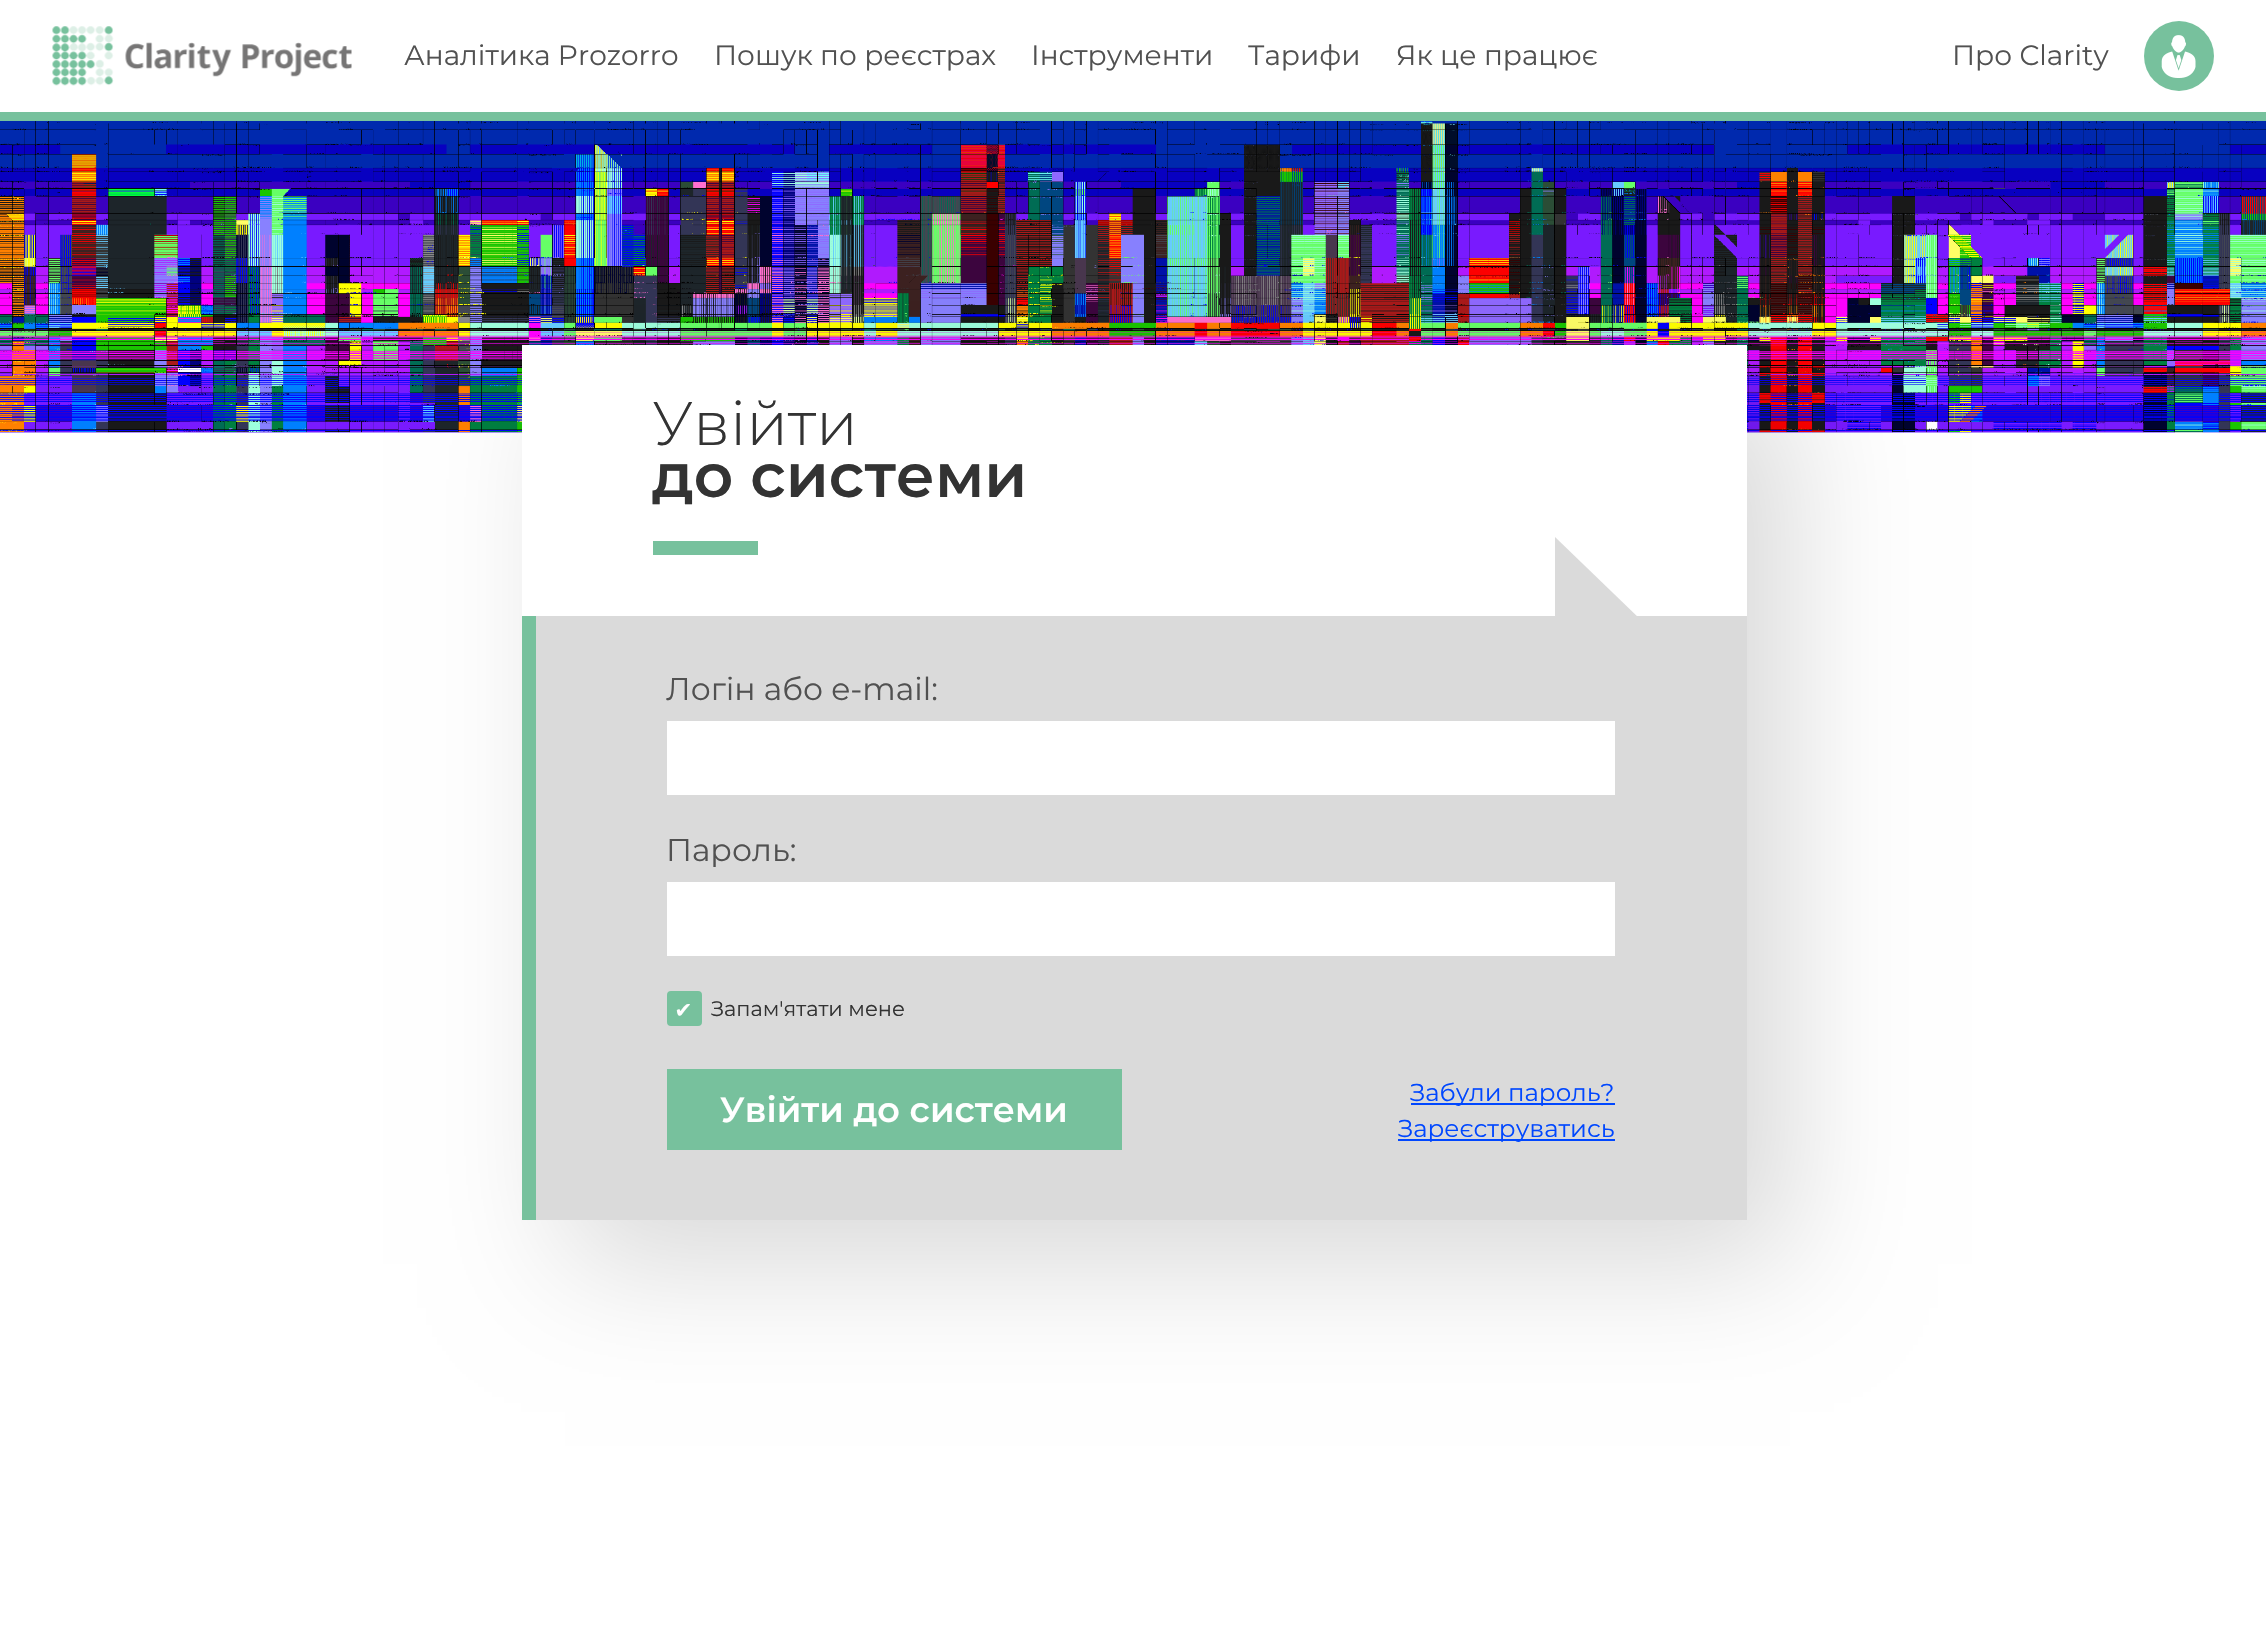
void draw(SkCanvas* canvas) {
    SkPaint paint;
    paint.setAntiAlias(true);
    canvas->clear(0xFFFFFFFF);
    paint.setColor(0xFF77C19D);
    canvas->drawRect(SkRect::MakeXYWH(0, 112, 2266, 9), paint);
    canvas->drawImageRect(SkImages::DeferredFromEncodedData(SkData::MakeFromFileName("img1.png")), SkRect::MakeXYWH(52, 26, 300, 60), SkSamplingOptions());
    SkFont font1(fontMgr->matchFamilyStyle("Montserrat", SkFontStyle::Normal()), 28);
    font1.setSubpixel(true);
    paint.setColor(0xFF515151);
    canvas->drawString("Аналітика Prozorro", 404, 65, font1, paint);
    canvas->drawString("Пошук по реєстрах", 714, 65, font1, paint);
    canvas->drawString("Інструменти", 1031, 65, font1, paint);
    canvas->drawString("Тарифи", 1248, 65, font1, paint);
    canvas->drawString("Як це працює", 1396, 65, font1, paint);
    canvas->drawString("Про Clarity", 1952, 65, font1, paint);
    paint.setColor(0xFF77C19D);
    canvas->drawCircle(2179, 56, 35, paint);
    canvas->drawImageRect(SkImages::DeferredFromEncodedData(SkData::MakeFromFileName("img2.png")), SkRect::MakeXYWH(2161, 35, 35, 43), SkSamplingOptions());
    canvas->drawImageRect(SkImages::DeferredFromEncodedData(SkData::MakeFromFileName("img3.png")), SkRect::MakeXYWH(0, 121, 2266, 312), SkSamplingOptions());
    paint.setColor(0x26000000);
    paint.setMaskFilter(SkMaskFilter::MakeBlur(kNormal_SkBlurStyle, 61));
    canvas->drawRect(SkRect::MakeXYWH(565, 389, 1225, 875), paint);
    paint.setMaskFilter(nullptr);
    paint.setColor(0xFFDADADA);
    canvas->drawRect(SkRect::MakeXYWH(536, 616, 1211, 604), paint);
    paint.setColor(0xFFFFFFFF);
    canvas->drawRect(SkRect::MakeXYWH(522, 345, 1225, 271), paint);
    SkFont font2(fontMgr->matchFamilyStyle("Montserrat", SkFontStyle(300, SkFontStyle::kNormal_Width, SkFontStyle::kUpright_Slant)), 61.25f);
    font2.setSubpixel(true);
    paint.setColor(0xFF333333);
    canvas->drawString("Увійти", 652, 445, font2, paint);
    SkFont font3(fontMgr->matchFamilyStyle("Montserrat", SkFontStyle(600, SkFontStyle::kNormal_Width, SkFontStyle::kUpright_Slant)), 61.25f);
    font3.setSubpixel(true);
    canvas->drawString("до системи", 652, 497, font3, paint);
    paint.setColor(0xFF77C19D);
    canvas->drawRect(SkRect::MakeXYWH(653, 541, 105, 14), paint);
    canvas->drawRect(SkRect::MakeXYWH(522, 616, 14, 604), paint);
    paint.setColor(0xFFDADADA);
    canvas->drawPath(SkPathBuilder().moveTo(1555, 537).lineTo(1641, 620).lineTo(1555, 620).close().detach(), paint);
    SkFont font4(fontMgr->matchFamilyStyle("Montserrat", SkFontStyle::Normal()), 31.5f);
    font4.setSubpixel(true);
    paint.setColor(0xFF515151);
    canvas->drawString("Логін або e-mail:", 666, 700, font4, paint);
    paint.setColor(0xFFFFFFFF);
    canvas->drawRect(SkRect::MakeXYWH(667, 721, 948, 74), paint);
    paint.setColor(0xFF515151);
    canvas->drawString("Пароль:", 666, 861, font4, paint);
    paint.setColor(0xFFFFFFFF);
    canvas->drawRect(SkRect::MakeXYWH(667, 882, 948, 74), paint);
    paint.setColor(0xFF77C19D);
    canvas->drawRoundRect(SkRect::MakeXYWH(668, 992, 33, 33), 3, 3, paint);
    paint.setStyle(SkPaint::kStroke_Style);
    paint.setStrokeWidth(2);
    canvas->drawRoundRect(SkRect::MakeXYWH(668, 992, 33, 33), 3, 3, paint);
    SkFont font5(fontMgr->matchFamilyStyle("DejaVu Sans Mono", SkFontStyle::Bold()), 24.5f);
    font5.setSubpixel(true);
    paint.setStyle(SkPaint::kFill_Style);
    paint.setColor(0xFFFFFFFF);
    canvas->drawString("✔", 676, 1017, font5, paint);
    SkFont font6(fontMgr->matchFamilyStyle("Montserrat", SkFontStyle::Normal()), 21);
    font6.setSubpixel(true);
    paint.setColor(0xFF333333);
    canvas->drawString("Запам'ятати мене", 711, 1016, font6, paint);
    paint.setColor(0xFF77C19D);
    canvas->drawRect(SkRect::MakeXYWH(667, 1069, 455, 81), paint);
    SkFont font7(fontMgr->matchFamilyStyle("Montserrat", SkFontStyle(600, SkFontStyle::kNormal_Width, SkFontStyle::kUpright_Slant)), 35);
    font7.setSubpixel(true);
    paint.setColor(0xFFFFFFFF);
    canvas->drawString("Увійти до системи", 720, 1122, font7, paint);
    paint.setColor(0xFF0047FF);
    canvas->drawRect(SkRect::MakeXYWH(1411, 1103, 204, 2), paint);
    SkFont font8(fontMgr->matchFamilyStyle("Montserrat", SkFontStyle::Normal()), 24.5f);
    font8.setSubpixel(true);
    canvas->drawString("Забули пароль?", 1410, 1101, font8, paint);
    canvas->drawRect(SkRect::MakeXYWH(1398, 1139, 217, 2), paint);
    canvas->drawString("Зареєструватись", 1398, 1137, font8, paint);
}
